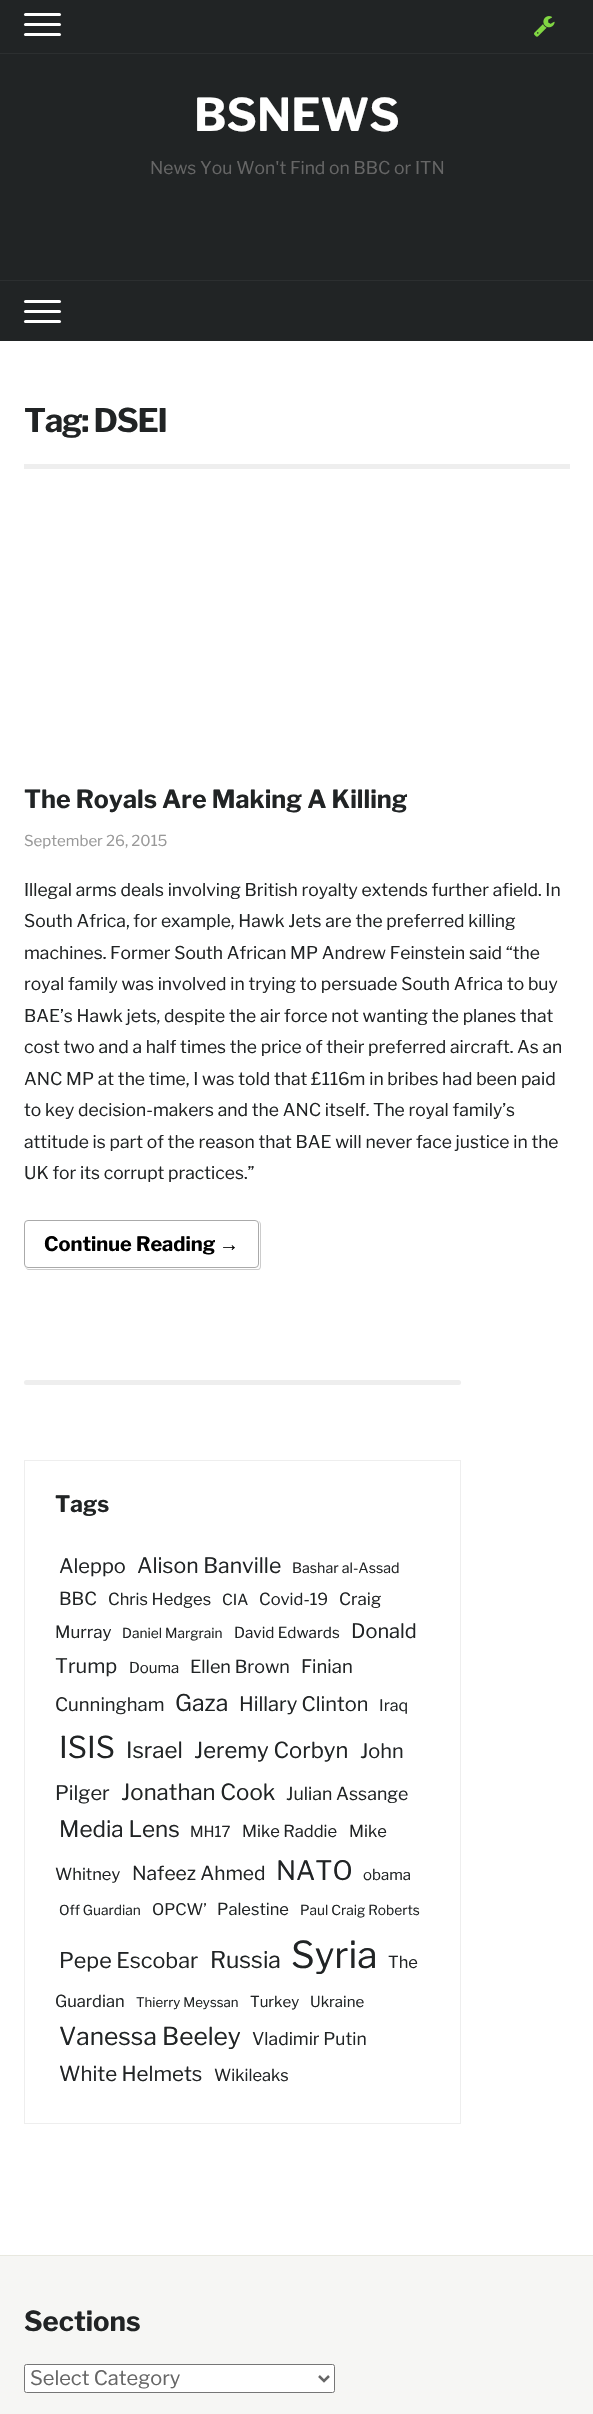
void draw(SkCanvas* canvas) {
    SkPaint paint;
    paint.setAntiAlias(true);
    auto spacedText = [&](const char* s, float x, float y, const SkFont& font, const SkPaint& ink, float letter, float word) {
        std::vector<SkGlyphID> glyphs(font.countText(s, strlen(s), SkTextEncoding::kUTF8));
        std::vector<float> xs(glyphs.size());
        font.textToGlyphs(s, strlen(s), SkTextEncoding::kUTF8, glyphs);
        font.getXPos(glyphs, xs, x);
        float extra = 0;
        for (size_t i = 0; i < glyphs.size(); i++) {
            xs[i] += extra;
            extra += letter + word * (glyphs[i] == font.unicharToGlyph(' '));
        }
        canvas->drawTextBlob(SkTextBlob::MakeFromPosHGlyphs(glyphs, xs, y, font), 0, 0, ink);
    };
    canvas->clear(0xFFFFFFFF);
    paint.setColor(0xFF212425);
    canvas->drawRect(SkRect::MakeXYWH(0, 0, 593, 341), paint);
    paint.setColor(0xFF2C2F30);
    canvas->drawRect(SkRect::MakeXYWH(0, 53, 593, 1), paint);
    paint.setColor(0xFFFFFFFF);
    canvas->drawRoundRect(SkRect::MakeXYWH(24, 13, 37, 3), 1.5f, 1.5f, paint);
    canvas->drawRoundRect(SkRect::MakeXYWH(24, 23, 37, 3), 1.5f, 1.5f, paint);
    canvas->drawRoundRect(SkRect::MakeXYWH(24, 33, 37, 3), 1.5f, 1.5f, paint);
    canvas->drawImageRect(SkImages::DeferredFromEncodedData(SkData::MakeFromFileName("img1.png")), SkRect::MakeXYWH(534, 16, 21, 21), SkSamplingOptions());
    SkFont font1(fontMgr->matchFamilyStyle("Libre Franklin", SkFontStyle::Bold()), 45);
    font1.setSubpixel(true);
    canvas->drawString("BSNEWS", 194, 131, font1, paint);
    SkFont font2(fontMgr->matchFamilyStyle("Libre Franklin", SkFontStyle::Normal()), 17.5f);
    font2.setSubpixel(true);
    paint.setColor(0xFF666666);
    canvas->drawString("News You Won't Find on BBC or ITN", 150, 174, font2, paint);
    paint.setColor(0xFF2C2F30);
    canvas->drawRect(SkRect::MakeXYWH(0, 280, 593, 1), paint);
    paint.setColor(0xFFFFFFFF);
    canvas->drawRoundRect(SkRect::MakeXYWH(24, 300, 37, 3), 1.5f, 1.5f, paint);
    canvas->drawRoundRect(SkRect::MakeXYWH(24, 310, 37, 3), 1.5f, 1.5f, paint);
    canvas->drawRoundRect(SkRect::MakeXYWH(24, 320, 37, 3), 1.5f, 1.5f, paint);
    paint.setColor(0xFFEEEEEE);
    canvas->drawRect(SkRect::MakeXYWH(24, 464, 546, 5), paint);
    SkFont font3(fontMgr->matchFamilyStyle("Libre Franklin", SkFontStyle::Bold()), 32.5f);
    font3.setSubpixel(true);
    paint.setColor(0xFF212425);
    spacedText("Tag: DSEI", 24, 432, font3, paint, -1.25f, 0);
    SkFont font4(fontMgr->matchFamilyStyle("Libre Franklin", SkFontStyle::Bold()), 25);
    font4.setSubpixel(true);
    canvas->drawString("The Royals Are Making A Killing", 24, 808, font4, paint);
    SkFont font5(fontMgr->matchFamilyStyle("Libre Franklin", SkFontStyle::Normal()), 15);
    font5.setSubpixel(true);
    paint.setColor(0xFF999999);
    canvas->drawString("September 26, 2015", 24, 846, font5, paint);
    paint.setColor(0xFF212425);
    canvas->drawString("Illegal arms deals involving British royalty extends further afield. In", 24, 896, font2, paint);
    canvas->drawString("South Africa, for example, Hawk Jets are the preferred killing", 24, 927, font2, paint);
    canvas->drawString("machines. Former South African MP Andrew Feinstein said “the", 24, 959, font2, paint);
    canvas->drawString("royal family was involved in trying to persuade South Africa to buy", 24, 990, font2, paint);
    canvas->drawString("BAE’s Hawk jets, despite the air force not wanting the planes that", 24, 1022, font2, paint);
    canvas->drawString("cost two and a half times the price of their preferred aircraft. As an", 24, 1053, font2, paint);
    canvas->drawString("ANC MP at the time, I was told that £116m in bribes had been paid", 24, 1085, font2, paint);
    canvas->drawString("to key decision-makers and the ANC itself. The royal family’s", 24, 1116, font2, paint);
    canvas->drawString("attitude is part of the reason that BAE will never face justice in the", 24, 1148, font2, paint);
    canvas->drawString("UK for its corrupt practices.”", 24, 1179, font2, paint);
    paint.setStyle(SkPaint::kStroke_Style);
    paint.setStrokeWidth(1);
    paint.setColor(0xFFAAAAAA);
    canvas->drawRoundRect(SkRect::MakeXYWH(24.5f, 1220.5f, 234, 47), 3.5f, 3.5f, paint);
    SkFont font6(fontMgr->matchFamilyStyle("Libre Franklin", SkFontStyle::Bold()), 20);
    font6.setSubpixel(true);
    paint.setStyle(SkPaint::kFill_Style);
    paint.setColor(0xFF000000);
    canvas->drawString("Continue Reading", 44, 1251, font6, paint);
    SkFont font7(fontMgr->matchFamilyStyle("Liberation Sans", SkFontStyle::Bold()), 20);
    font7.setSubpixel(true);
    canvas->drawString("→", 219, 1251, font7, paint);
    paint.setColor(0xFFCCCCCC);
    canvas->drawPath(SkPathBuilder(SkPathFillType::kEvenOdd).moveTo(29, 1221).lineTo(258, 1221).cubicTo(260, 1221, 261, 1223, 261, 1225).lineTo(261, 1266).cubicTo(261, 1268, 260, 1270, 258, 1270).lineTo(29, 1270).cubicTo(27, 1270, 25, 1268, 25, 1266).lineTo(25, 1225).cubicTo(25, 1223, 27, 1221, 29, 1221).close().moveTo(29, 1221).lineTo(258, 1221).cubicTo(259, 1221, 260, 1223, 260, 1225).lineTo(260, 1266).cubicTo(260, 1268, 259, 1269, 258, 1269).lineTo(29, 1269).cubicTo(27, 1269, 25, 1268, 25, 1266).lineTo(25, 1225).cubicTo(25, 1223, 27, 1221, 29, 1221).close().detach(), paint);
    paint.setColor(0xFFEEEEEE);
    canvas->drawRoundRect(SkRect::MakeXYWH(24, 1380, 437, 5), 2.5f, 2.5f, paint);
    paint.setStyle(SkPaint::kStroke_Style);
    canvas->drawRect(SkRect::MakeXYWH(24.5f, 1460.5f, 436, 663), paint);
    SkFont font8(fontMgr->matchFamilyStyle("Libre Franklin", SkFontStyle::Bold()), 22.5f);
    font8.setSubpixel(true);
    paint.setStyle(SkPaint::kFill_Style);
    paint.setColor(0xFF212425);
    canvas->drawString("Tags", 55, 1512, font8, paint);
    SkFont font9(fontMgr->matchFamilyStyle("Libre Franklin", SkFontStyle::Normal()), 20);
    font9.setSubpixel(true);
    canvas->drawString("Aleppo", 59, 1573, font9, paint);
    SkFont font10(fontMgr->matchFamilyStyle("Libre Franklin", SkFontStyle::Normal()), 21.25f);
    font10.setSubpixel(true);
    canvas->drawString("Alison Banville", 137, 1573, font10, paint);
    SkFont font11(fontMgr->matchFamilyStyle("Libre Franklin", SkFontStyle::Normal()), 14.25f);
    font11.setSubpixel(true);
    canvas->drawString("Bashar al-Assad", 292, 1573, font11, paint);
    SkFont font12(fontMgr->matchFamilyStyle("Libre Franklin", SkFontStyle::Normal()), 18);
    font12.setSubpixel(true);
    canvas->drawString("BBC", 59, 1605, font12, paint);
    SkFont font13(fontMgr->matchFamilyStyle("Libre Franklin", SkFontStyle::Normal()), 16.5f);
    font13.setSubpixel(true);
    canvas->drawString("Chris Hedges", 108, 1605, font13, paint);
    SkFont font14(fontMgr->matchFamilyStyle("Libre Franklin", SkFontStyle::Normal()), 15.25f);
    font14.setSubpixel(true);
    canvas->drawString("CIA", 222, 1605, font14, paint);
    canvas->drawString("Covid-19", 259, 1605, font13, paint);
    SkFont font15(fontMgr->matchFamilyStyle("Libre Franklin", SkFontStyle::Normal()), 17);
    font15.setSubpixel(true);
    canvas->drawString("Craig", 339, 1605, font15, paint);
    canvas->drawString("Murray", 55, 1638, font15, paint);
    SkFont font16(fontMgr->matchFamilyStyle("Libre Franklin", SkFontStyle::Normal()), 13.75f);
    font16.setSubpixel(true);
    canvas->drawString("Daniel Margrain", 122, 1638, font16, paint);
    canvas->drawString("David Edwards", 234, 1638, font14, paint);
    canvas->drawString("Donald", 351, 1638, font9, paint);
    canvas->drawString("Trump", 55, 1673, font9, paint);
    canvas->drawString("Douma", 129, 1673, font5, paint);
    canvas->drawString("Ellen Brown", 190, 1673, font12, paint);
    SkFont font17(fontMgr->matchFamilyStyle("Libre Franklin", SkFontStyle::Normal()), 18.5f);
    font17.setSubpixel(true);
    canvas->drawString("Finian", 301, 1673, font17, paint);
    canvas->drawString("Cunningham", 55, 1711, font17, paint);
    SkFont font18(fontMgr->matchFamilyStyle("Libre Franklin", SkFontStyle::Normal()), 23);
    font18.setSubpixel(true);
    canvas->drawString("Gaza", 175, 1711, font18, paint);
    canvas->drawString("Hillary Clinton", 239, 1711, font9, paint);
    SkFont font19(fontMgr->matchFamilyStyle("Libre Franklin", SkFontStyle::Normal()), 16);
    font19.setSubpixel(true);
    canvas->drawString("Iraq", 379, 1711, font19, paint);
    SkFont font20(fontMgr->matchFamilyStyle("Libre Franklin", SkFontStyle::Normal()), 30);
    font20.setSubpixel(true);
    canvas->drawString("ISIS", 59, 1758, font20, paint);
    SkFont font21(fontMgr->matchFamilyStyle("Libre Franklin", SkFontStyle::Normal()), 22.25f);
    font21.setSubpixel(true);
    canvas->drawString("Israel", 126, 1758, font21, paint);
    SkFont font22(fontMgr->matchFamilyStyle("Libre Franklin", SkFontStyle::Normal()), 22);
    font22.setSubpixel(true);
    canvas->drawString("Jeremy Corbyn", 194, 1758, font22, paint);
    canvas->drawString("John", 360, 1758, font9, paint);
    canvas->drawString("Pilger", 55, 1800, font9, paint);
    canvas->drawString("Jonathan Cook", 121, 1800, font21, paint);
    SkFont font23(fontMgr->matchFamilyStyle("Libre Franklin", SkFontStyle::Normal()), 17.75f);
    font23.setSubpixel(true);
    canvas->drawString("Julian Assange", 286, 1800, font23, paint);
    SkFont font24(fontMgr->matchFamilyStyle("Libre Franklin", SkFontStyle::Normal()), 22.5f);
    font24.setSubpixel(true);
    canvas->drawString("Media Lens", 59, 1837, font24, paint);
    canvas->drawString("MH17", 190, 1837, font5, paint);
    canvas->drawString("Mike Raddie", 242, 1837, font13, paint);
    canvas->drawString("Mike", 349, 1837, font13, paint);
    canvas->drawString("Whitney", 55, 1880, font13, paint);
    SkFont font25(fontMgr->matchFamilyStyle("Libre Franklin", SkFontStyle::Normal()), 19.25f);
    font25.setSubpixel(true);
    canvas->drawString("Nafeez Ahmed", 132, 1880, font25, paint);
    SkFont font26(fontMgr->matchFamilyStyle("Libre Franklin", SkFontStyle::Normal()), 26.5f);
    font26.setSubpixel(true);
    canvas->drawString("NATO", 276, 1880, font26, paint);
    canvas->drawString("obama", 363, 1880, font5, paint);
    canvas->drawString("Off Guardian", 59, 1915, font16, paint);
    canvas->drawString("OPCW’", 152, 1915, font19, paint);
    canvas->drawString("Palestine", 217, 1915, font13, paint);
    canvas->drawString("Paul Craig Roberts", 300, 1915, font16, paint);
    SkFont font27(fontMgr->matchFamilyStyle("Libre Franklin", SkFontStyle::Normal()), 21.5f);
    font27.setSubpixel(true);
    canvas->drawString("Pepe Escobar", 59, 1968, font27, paint);
    canvas->drawString("Russia", 210, 1968, font18, paint);
    SkFont font28(fontMgr->matchFamilyStyle("Libre Franklin", SkFontStyle::Normal()), 37);
    font28.setSubpixel(true);
    canvas->drawString("Syria", 291, 1968, font28, paint);
    canvas->drawString("The", 388, 1968, font13, paint);
    canvas->drawString("Guardian", 55, 2007, font13, paint);
    SkFont font29(fontMgr->matchFamilyStyle("Libre Franklin", SkFontStyle::Normal()), 13.25f);
    font29.setSubpixel(true);
    canvas->drawString("Thierry Meyssan", 136, 2007, font29, paint);
    canvas->drawString("Turkey", 250, 2007, font5, paint);
    canvas->drawString("Ukraine", 310, 2007, font5, paint);
    SkFont font30(fontMgr->matchFamilyStyle("Libre Franklin", SkFontStyle::Normal()), 24.5f);
    font30.setSubpixel(true);
    canvas->drawString("Vanessa Beeley", 59, 2045, font30, paint);
    canvas->drawString("Vladimir Putin", 252, 2045, font2, paint);
    SkFont font31(fontMgr->matchFamilyStyle("Libre Franklin", SkFontStyle::Normal()), 20.5f);
    font31.setSubpixel(true);
    canvas->drawString("White Helmets", 59, 2081, font31, paint);
    canvas->drawString("Wikileaks", 214, 2081, font13, paint);
    paint.setColor(0xFFF6F6F4);
    canvas->drawRect(SkRect::MakeXYWH(0, 2256, 593, 158), paint);
    paint.setColor(0xFFE8E8DF);
    canvas->drawRect(SkRect::MakeXYWH(0, 2255, 593, 1), paint);
    SkFont font32(fontMgr->matchFamilyStyle("Libre Franklin", SkFontStyle::Bold()), 27.5f);
    font32.setSubpixel(true);
    paint.setColor(0xFF212425);
    canvas->drawString("Sections", 24, 2331, font32, paint);
    paint.setColor(0xFFFFFFFF);
    canvas->drawRoundRect(SkRect::MakeXYWH(24.5f, 2364.5f, 310, 28), 2, 2, paint);
    paint.setStyle(SkPaint::kStroke_Style);
    paint.setColor(0xFF767676);
    canvas->drawRoundRect(SkRect::MakeXYWH(24.5f, 2364.5f, 310, 28), 2, 2, paint);
    paint.setStrokeWidth(2.5f);
    paint.setColor(0xFF666666);
    canvas->drawPath(SkPathBuilder().moveTo(319, 2376).lineTo(324, 2381).lineTo(329, 2376).detach(), paint);
    paint.setStyle(SkPaint::kFill_Style);
    canvas->drawString("Select Category", 30, 2385, font9, paint);
}
